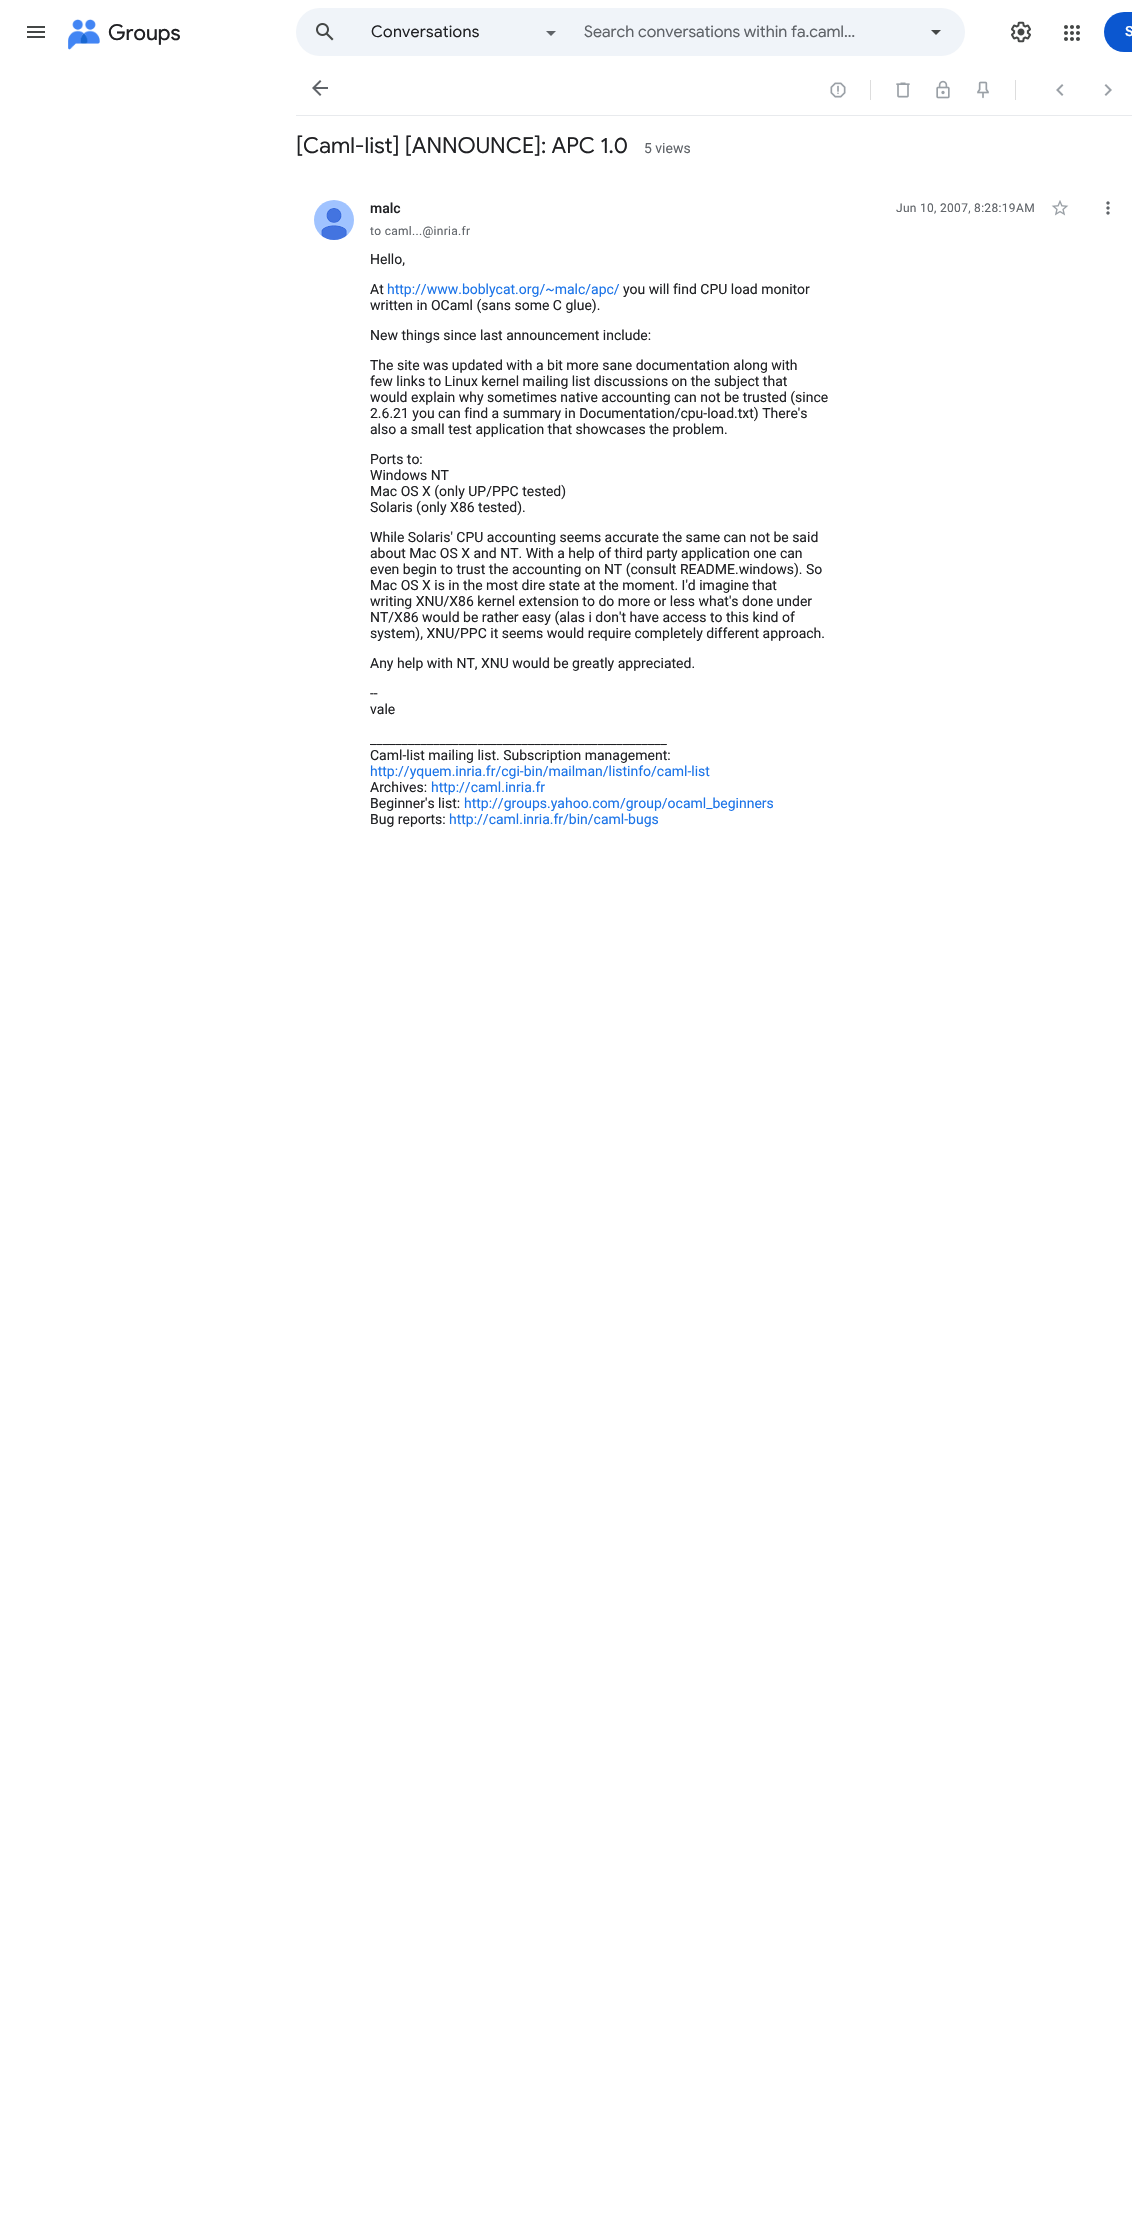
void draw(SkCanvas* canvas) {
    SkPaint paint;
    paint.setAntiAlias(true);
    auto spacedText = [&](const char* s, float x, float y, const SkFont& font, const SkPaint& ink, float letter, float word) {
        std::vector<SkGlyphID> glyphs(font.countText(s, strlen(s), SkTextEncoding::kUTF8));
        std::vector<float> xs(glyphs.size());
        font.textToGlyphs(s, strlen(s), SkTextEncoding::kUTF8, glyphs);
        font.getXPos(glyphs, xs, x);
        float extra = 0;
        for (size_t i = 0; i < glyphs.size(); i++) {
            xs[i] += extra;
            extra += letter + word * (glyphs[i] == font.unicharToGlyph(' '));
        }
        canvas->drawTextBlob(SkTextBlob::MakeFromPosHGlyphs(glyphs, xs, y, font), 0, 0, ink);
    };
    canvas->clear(0xFFFFFFFF);
    canvas->drawImageRect(SkImages::DeferredFromEncodedData(SkData::MakeFromFileName("img1.png")), SkRect::MakeXYWH(27, 26, 18, 12), SkSamplingOptions());
    canvas->drawImageRect(SkImages::DeferredFromEncodedData(SkData::MakeFromFileName("img2.png")), SkRect::MakeXYWH(68, 19, 32, 31), SkSamplingOptions());
    SkFont font1(fontMgr->matchFamilyStyle("Product Sans", SkFontStyle::Normal()), 22);
    font1.setSubpixel(true);
    paint.setColor(0xFF202124);
    canvas->drawString("Groups", 108, 40, font1, paint);
    paint.setColor(0xFFF0F4F9);
    canvas->drawRoundRect(SkRect::MakeXYWH(296, 8, 669, 48), 24, 24, paint);
    canvas->drawImageRect(SkImages::DeferredFromEncodedData(SkData::MakeFromFileName("img3.png")), SkRect::MakeXYWH(316, 23, 18, 18), SkSamplingOptions());
    SkFont font2(fontMgr->matchFamilyStyle("Google Sans", SkFontStyle::Normal()), 16);
    font2.setSubpixel(true);
    paint.setColor(0xFF202124);
    spacedText("Conversations", 371, 37, font2, paint, 0.25f, 0);
    paint.setColor(0xFF5F6368);
    canvas->drawPath(SkPathBuilder().moveTo(546, 31).lineTo(556, 31).lineTo(551, 36).close().detach(), paint);
    canvas->drawString("Search conversations within fa.caml…", 584, 37, font2, paint);
    paint.setColor(0xFF444746);
    canvas->drawPath(SkPathBuilder().moveTo(931, 30).lineTo(936, 35).lineTo(941, 30).close().detach(), paint);
    canvas->drawImageRect(SkImages::DeferredFromEncodedData(SkData::MakeFromFileName("img4.png")), SkRect::MakeXYWH(1011, 21, 20, 22), SkSamplingOptions());
    canvas->drawImageRect(SkImages::DeferredFromEncodedData(SkData::MakeFromFileName("img5.png")), SkRect::MakeXYWH(1064, 25, 16, 16), SkSamplingOptions());
    paint.setColor(0xFF0B57D0);
    canvas->drawRoundRect(SkRect::MakeXYWH(1104, 12, 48, 40), 20, 20, paint);
    SkFont font3(fontMgr->matchFamilyStyle("Roboto", SkFontStyle(500, SkFontStyle::kNormal_Width, SkFontStyle::kUpright_Slant)), 14);
    font3.setSubpixel(true);
    paint.setColor(0xFFFFFFFF);
    canvas->drawString("S", 1125, 36, font3, paint);
    paint.setColor(0xFFE8EAED);
    canvas->drawRect(SkRect::MakeXYWH(296, 115, 836, 1), paint);
    canvas->drawImageRect(SkImages::DeferredFromEncodedData(SkData::MakeFromFileName("img6.png")), SkRect::MakeXYWH(312, 80, 16, 16), SkSamplingOptions());
    canvas->drawImageRect(SkImages::DeferredFromEncodedData(SkData::MakeFromFileName("img7.png")), SkRect::MakeXYWH(830, 82, 16, 16), SkSamplingOptions());
    paint.setColor(0xFFDDDDDD);
    canvas->drawRect(SkRect::MakeXYWH(870, 80, 1, 20), paint);
    canvas->drawImageRect(SkImages::DeferredFromEncodedData(SkData::MakeFromFileName("img8.png")), SkRect::MakeXYWH(896, 82, 14, 16), SkSamplingOptions());
    canvas->drawImageRect(SkImages::DeferredFromEncodedData(SkData::MakeFromFileName("img9.png")), SkRect::MakeXYWH(936, 80, 14, 19), SkSamplingOptions());
    canvas->drawImageRect(SkImages::DeferredFromEncodedData(SkData::MakeFromFileName("img10.png")), SkRect::MakeXYWH(977, 81, 12, 18), SkSamplingOptions());
    canvas->drawRect(SkRect::MakeXYWH(1015, 80, 1, 20), paint);
    canvas->drawImageRect(SkImages::DeferredFromEncodedData(SkData::MakeFromFileName("img11.png")), SkRect::MakeXYWH(1056, 84, 8, 12), SkSamplingOptions());
    canvas->drawImageRect(SkImages::DeferredFromEncodedData(SkData::MakeFromFileName("img12.png")), SkRect::MakeXYWH(1104, 84, 8, 12), SkSamplingOptions());
    SkFont font4(fontMgr->matchFamilyStyle("Google Sans", SkFontStyle::Normal()), 22);
    font4.setSubpixel(true);
    paint.setColor(0xFF202124);
    canvas->drawString("[Caml-list] [ANNOUNCE]: APC 1.0", 296, 153, font4, paint);
    SkFont font5(fontMgr->matchFamilyStyle("Roboto", SkFontStyle::Normal()), 14);
    font5.setSubpixel(true);
    paint.setColor(0xFF5F6368);
    canvas->drawString("5 views", 644, 153, font5, paint);
    canvas->drawImageRect(SkImages::DeferredFromEncodedData(SkData::MakeFromFileName("img13.png")), SkRect::MakeXYWH(314, 200, 40, 40), SkSamplingOptions());
    paint.setColor(0xFF202124);
    canvas->drawString("malc", 370, 213, font3, paint);
    SkFont font6(fontMgr->matchFamilyStyle("Roboto", SkFontStyle::Normal()), 12);
    font6.setSubpixel(true);
    paint.setColor(0xFF5F6368);
    spacedText("Jun 10, 2007, 8:28:19 AM", 896, 212, font6, paint, 0.3f, 0);
    canvas->drawImageRect(SkImages::DeferredFromEncodedData(SkData::MakeFromFileName("img14.png")), SkRect::MakeXYWH(1051, 200, 18, 16), SkSamplingOptions());
    canvas->drawImageRect(SkImages::DeferredFromEncodedData(SkData::MakeFromFileName("img15.png")), SkRect::MakeXYWH(1106, 201, 4, 14), SkSamplingOptions());
    spacedText("to caml...@inria.fr", 370, 235, font6, paint, 0.3f, 0);
    paint.setColor(0xFF202124);
    canvas->drawString("Hello,", 370, 264, font5, paint);
    canvas->drawString("At", 370, 294, font5, paint);
    paint.setColor(0xFF1A73E8);
    canvas->drawString("http://www.boblycat.org/~malc/apc/", 387, 294, font5, paint);
    paint.setColor(0xFF202124);
    canvas->drawString("you will find CPU load monitor", 623, 294, font5, paint);
    canvas->drawString("written in OCaml (sans some C glue).", 370, 310, font5, paint);
    canvas->drawString("New things since last announcement include:", 370, 340, font5, paint);
    canvas->drawString("The site was updated with a bit more sane documentation along with", 370, 370, font5, paint);
    canvas->drawString("few links to Linux kernel mailing list discussions on the subject that", 370, 386, font5, paint);
    canvas->drawString("would explain why sometimes native accounting can not be trusted (since", 370, 402, font5, paint);
    canvas->drawString("2.6.21 you can find a summary in Documentation/cpu-load.txt) There's", 370, 418, font5, paint);
    canvas->drawString("also a small test application that showcases the problem.", 370, 434, font5, paint);
    canvas->drawString("Ports to:", 370, 464, font5, paint);
    canvas->drawString("Windows NT", 370, 480, font5, paint);
    canvas->drawString("Mac OS X (only UP/PPC tested)", 370, 496, font5, paint);
    canvas->drawString("Solaris (only X86 tested).", 370, 512, font5, paint);
    canvas->drawString("While Solaris' CPU accounting seems accurate the same can not be said", 370, 542, font5, paint);
    canvas->drawString("about Mac OS X and NT. With a help of third party application one can", 370, 558, font5, paint);
    canvas->drawString("even begin to trust the accounting on NT (consult README.windows). So", 370, 574, font5, paint);
    canvas->drawString("Mac OS X is in the most dire state at the moment. I'd imagine that", 370, 590, font5, paint);
    canvas->drawString("writing XNU/X86 kernel extension to do more or less what's done under", 370, 606, font5, paint);
    canvas->drawString("NT/X86 would be rather easy (alas i don't have access to this kind of", 370, 622, font5, paint);
    canvas->drawString("system), XNU/PPC it seems would require completely different approach.", 370, 638, font5, paint);
    canvas->drawString("Any help with NT, XNU would be greatly appreciated.", 370, 668, font5, paint);
    canvas->drawString("--", 370, 698, font5, paint);
    canvas->drawString("vale", 370, 714, font5, paint);
    canvas->drawString("_______________________________________________", 370, 744, font5, paint);
    canvas->drawString("Caml-list mailing list. Subscription management:", 370, 760, font5, paint);
    paint.setColor(0xFF1A73E8);
    canvas->drawString("http://yquem.inria.fr/cgi-bin/mailman/listinfo/caml-list", 370, 776, font5, paint);
    paint.setColor(0xFF202124);
    canvas->drawString("Archives:", 370, 792, font5, paint);
    paint.setColor(0xFF1A73E8);
    canvas->drawString("http://caml.inria.fr", 431, 792, font5, paint);
    paint.setColor(0xFF202124);
    canvas->drawString("Beginner's list:", 370, 808, font5, paint);
    paint.setColor(0xFF1A73E8);
    canvas->drawString("http://groups.yahoo.com/group/ocaml_beginners", 464, 808, font5, paint);
    paint.setColor(0xFF202124);
    canvas->drawString("Bug reports:", 370, 824, font5, paint);
    paint.setColor(0xFF1A73E8);
    canvas->drawString("http://caml.inria.fr/bin/caml-bugs", 449, 824, font5, paint);
}
